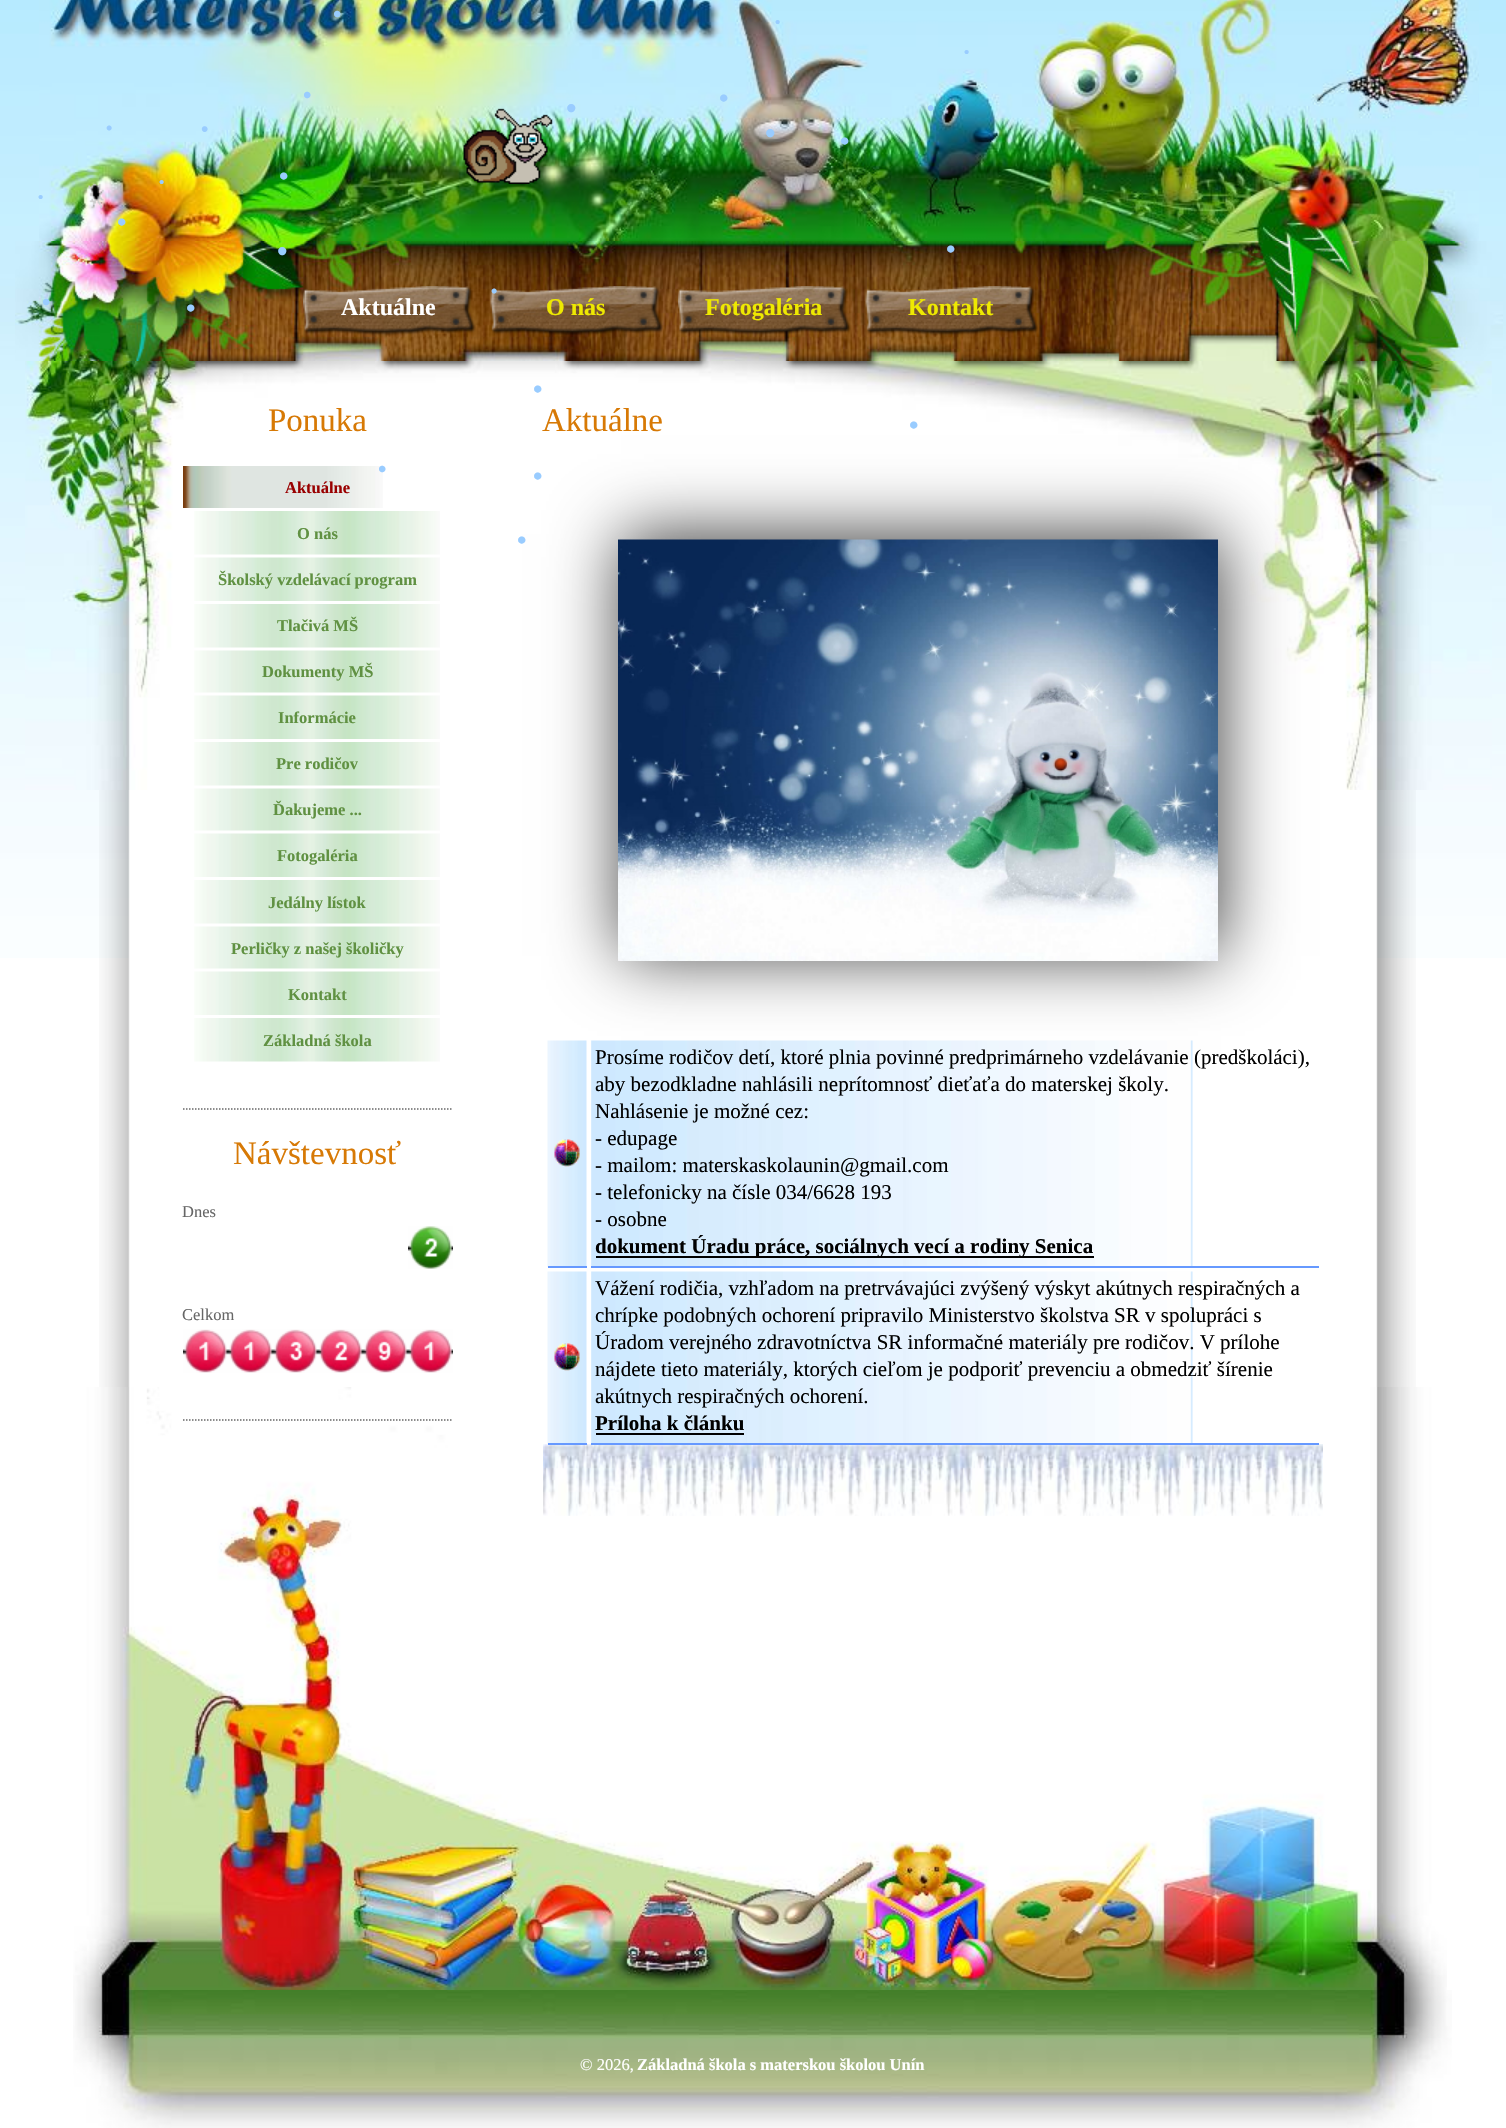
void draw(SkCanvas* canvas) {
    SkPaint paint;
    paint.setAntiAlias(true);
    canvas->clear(0xFFFFFFFF);
    canvas->drawImageRect(SkImages::DeferredFromEncodedData(SkData::MakeFromFileName("img1.png")), SkRect::MakeXYWH(0, 0, 1506, 958), SkSamplingOptions());
    canvas->drawImageRect(SkImages::DeferredFromEncodedData(SkData::MakeFromFileName("img2.png")), SkRect::MakeXYWH(39, 0, 1440, 241), SkSamplingOptions());
    canvas->drawImageRect(SkImages::DeferredFromEncodedData(SkData::MakeFromFileName("img3.png")), SkRect::MakeXYWH(78, 0, 1350, 228), SkSamplingOptions());
    SkFont font1(fontMgr->matchFamilyStyle("Liberation Sans", SkFontStyle::Normal()), 24);
    font1.setSubpixel(true);
    paint.setColor(0xFF99CCFF);
    canvas->drawString("•", 333, 22, font1, paint);
    SkFont font2(fontMgr->matchFamilyStyle("Liberation Sans", SkFontStyle::Normal()), 15);
    font2.setSubpixel(true);
    canvas->drawString("•", 775, 27, font2, paint);
    canvas->drawString("•", 964, 57, font2, paint);
    canvas->drawString("•", 303, 103, font1, paint);
    SkFont font3(fontMgr->matchFamilyStyle("Liberation Sans", SkFontStyle::Normal()), 27);
    font3.setSubpixel(true);
    canvas->drawString("•", 719, 107, font3, paint);
    SkFont font4(fontMgr->matchFamilyStyle("Liberation Sans", SkFontStyle::Normal()), 30);
    font4.setSubpixel(true);
    canvas->drawString("•", 566, 118, font4, paint);
    SkFont font5(fontMgr->matchFamilyStyle("Liberation Sans", SkFontStyle::Normal()), 21);
    font5.setSubpixel(true);
    canvas->drawString("•", 927, 115, font5, paint);
    SkFont font6(fontMgr->matchFamilyStyle("Liberation Sans", SkFontStyle::Normal()), 18);
    font6.setSubpixel(true);
    canvas->drawString("•", 106, 134, font6, paint);
    canvas->drawString("•", 201, 136, font5, paint);
    canvas->drawString("•", 765, 143, font4, paint);
    canvas->drawString("•", 840, 150, font3, paint);
    canvas->drawString("•", 279, 185, font3, paint);
    canvas->drawString("•", 159, 187, font2, paint);
    canvas->drawString("•", 38, 202, font2, paint);
    canvas->drawString("•", 117, 231, font3, paint);
    canvas->drawImageRect(SkImages::DeferredFromEncodedData(SkData::MakeFromFileName("img6.png")), SkRect::MakeXYWH(15, 241, 1488, 120), SkSamplingOptions());
    canvas->drawImageRect(SkImages::DeferredFromEncodedData(SkData::MakeFromFileName("img7.png")), SkRect::MakeXYWH(78, 249, 1350, 103), SkSamplingOptions());
    canvas->drawString("•", 277, 261, font4, paint);
    canvas->drawString("•", 946, 258, font3, paint);
    canvas->drawImageRect(SkImages::DeferredFromEncodedData(SkData::MakeFromFileName("img9.png")), SkRect::MakeXYWH(490, 286, 173, 49), SkSamplingOptions());
    canvas->drawString("•", 491, 297, font6, paint);
    canvas->drawString("•", 42, 310, font1, paint);
    canvas->drawImageRect(SkImages::DeferredFromEncodedData(SkData::MakeFromFileName("img4.png")), SkRect::MakeXYWH(463, 108, 90, 76), SkSamplingOptions());
    canvas->drawImageRect(SkImages::DeferredFromEncodedData(SkData::MakeFromFileName("img5.png")), SkRect::MakeXYWH(88, 183, 16, 26), SkSamplingOptions());
    canvas->drawImageRect(SkImages::DeferredFromEncodedData(SkData::MakeFromFileName("img8.png")), SkRect::MakeXYWH(303, 286, 173, 50), SkSamplingOptions());
    SkFont font7(fontMgr->matchFamilyStyle("Liberation Serif", SkFontStyle::Bold()), 24);
    font7.setSubpixel(true);
    paint.setColor(0xFFFFFFFF);
    canvas->drawString("Aktuálne", 341, 315, font7, paint);
    paint.setColor(0xFFEEE901);
    canvas->drawString("O nás", 546, 315, font7, paint);
    canvas->drawImageRect(SkImages::DeferredFromEncodedData(SkData::MakeFromFileName("img10.png")), SkRect::MakeXYWH(678, 286, 173, 50), SkSamplingOptions());
    canvas->drawString("Fotogaléria", 705, 315, font7, paint);
    canvas->drawImageRect(SkImages::DeferredFromEncodedData(SkData::MakeFromFileName("img11.png")), SkRect::MakeXYWH(865, 286, 173, 50), SkSamplingOptions());
    canvas->drawString("Kontakt", 908, 315, font7, paint);
    canvas->drawImageRect(SkImages::DeferredFromEncodedData(SkData::MakeFromFileName("img12.png")), SkRect::MakeXYWH(99, 790, 1317, 597), SkSamplingOptions());
    canvas->drawImageRect(SkImages::DeferredFromEncodedData(SkData::MakeFromFileName("img13.png")), SkRect::MakeXYWH(73, 1387, 1374, 603), SkSamplingOptions());
    canvas->drawImageRect(SkImages::DeferredFromEncodedData(SkData::MakeFromFileName("img14.png")), SkRect::MakeXYWH(25, 361, 1467, 429), SkSamplingOptions());
    canvas->drawImageRect(SkImages::DeferredFromEncodedData(SkData::MakeFromFileName("img15.png")), SkRect::MakeXYWH(78, 365, 1, 236), SkSamplingOptions());
    SkFont font8(fontMgr->matchFamilyStyle("Liberation Serif", SkFontStyle::Normal()), 33);
    font8.setSubpixel(true);
    paint.setColor(0xFFD77905);
    canvas->drawString("Ponuka", 268, 431, font8, paint);
    canvas->drawImageRect(SkImages::DeferredFromEncodedData(SkData::MakeFromFileName("img16.png")), SkRect::MakeXYWH(183, 466, 200, 42), SkSamplingOptions());
    SkFont font9(fontMgr->matchFamilyStyle("Liberation Serif", SkFontStyle::Bold()), 16.5f);
    font9.setSubpixel(true);
    paint.setColor(0xFF990000);
    canvas->drawString("Aktuálne", 285, 493, font9, paint);
    canvas->drawImageRect(SkImages::DeferredFromEncodedData(SkData::MakeFromFileName("img17.png")), SkRect::MakeXYWH(194, 511, 246, 44), SkSamplingOptions());
    paint.setColor(0xFF609142);
    canvas->drawString("O nás", 297, 539, font9, paint);
    canvas->drawImageRect(SkImages::DeferredFromEncodedData(SkData::MakeFromFileName("img18.png")), SkRect::MakeXYWH(194, 557, 246, 44), SkSamplingOptions());
    canvas->drawString("Školský vzdelávací program", 218, 585, font9, paint);
    canvas->drawImageRect(SkImages::DeferredFromEncodedData(SkData::MakeFromFileName("img17.png")), SkRect::MakeXYWH(194, 604, 246, 44), SkSamplingOptions());
    canvas->drawString("Tlačivá MŠ", 277, 631, font9, paint);
    canvas->drawImageRect(SkImages::DeferredFromEncodedData(SkData::MakeFromFileName("img19.png")), SkRect::MakeXYWH(194, 650, 246, 43), SkSamplingOptions());
    canvas->drawString("Dokumenty MŠ", 262, 677, font9, paint);
    canvas->drawImageRect(SkImages::DeferredFromEncodedData(SkData::MakeFromFileName("img18.png")), SkRect::MakeXYWH(194, 695, 246, 44), SkSamplingOptions());
    canvas->drawString("Informácie", 278, 723, font9, paint);
    canvas->drawImageRect(SkImages::DeferredFromEncodedData(SkData::MakeFromFileName("img17.png")), SkRect::MakeXYWH(194, 742, 246, 44), SkSamplingOptions());
    canvas->drawString("Pre rodičov", 276, 769, font9, paint);
    canvas->drawImageRect(SkImages::DeferredFromEncodedData(SkData::MakeFromFileName("img19.png")), SkRect::MakeXYWH(194, 788, 246, 43), SkSamplingOptions());
    canvas->drawString("Ďakujeme ...", 273, 815, font9, paint);
    canvas->drawImageRect(SkImages::DeferredFromEncodedData(SkData::MakeFromFileName("img18.png")), SkRect::MakeXYWH(194, 833, 246, 44), SkSamplingOptions());
    canvas->drawString("Fotogaléria", 277, 861, font9, paint);
    canvas->drawImageRect(SkImages::DeferredFromEncodedData(SkData::MakeFromFileName("img17.png")), SkRect::MakeXYWH(194, 880, 246, 44), SkSamplingOptions());
    canvas->drawString("Jedálny lístok", 268, 908, font9, paint);
    canvas->drawImageRect(SkImages::DeferredFromEncodedData(SkData::MakeFromFileName("img19.png")), SkRect::MakeXYWH(194, 926, 246, 43), SkSamplingOptions());
    canvas->drawString("Perličky z našej školičky", 231, 954, font9, paint);
    canvas->drawImageRect(SkImages::DeferredFromEncodedData(SkData::MakeFromFileName("img18.png")), SkRect::MakeXYWH(194, 971, 246, 44), SkSamplingOptions());
    canvas->drawString("Kontakt", 288, 1000, font9, paint);
    canvas->drawImageRect(SkImages::DeferredFromEncodedData(SkData::MakeFromFileName("img17.png")), SkRect::MakeXYWH(194, 1018, 246, 44), SkSamplingOptions());
    canvas->drawString("Základná škola", 263, 1046, font9, paint);
    paint.setStyle(SkPaint::kStroke_Style);
    paint.setStrokeWidth(1.5f);
    paint.setColor(0xFF666666);
    paint.setPathEffect(SkDashPathEffect::Make({{1.5f, 1.5f}}, 0));
    canvas->drawPath(SkPathBuilder().moveTo(183, 1109).lineTo(453, 1109).detach(), paint);
    paint.setPathEffect(nullptr);
    paint.setPathEffect(SkDashPathEffect::Make({{1.5f, 1.5f}}, 0));
    canvas->drawPath(SkPathBuilder().moveTo(183, 1420).lineTo(453, 1420).detach(), paint);
    paint.setPathEffect(nullptr);
    paint.setStyle(SkPaint::kFill_Style);
    paint.setColor(0xFFD77905);
    canvas->drawString("Návštevnosť", 233, 1164, font8, paint);
    SkFont font10(fontMgr->matchFamilyStyle("Liberation Serif", SkFontStyle::Normal()), 16.5f);
    font10.setSubpixel(true);
    paint.setColor(0xFF666666);
    canvas->drawString("Dnes", 182, 1217, font10, paint);
    canvas->drawImageRect(SkImages::DeferredFromEncodedData(SkData::MakeFromFileName("img20.png")), SkRect::MakeXYWH(408, 1226, 45, 43), SkSamplingOptions());
    canvas->drawString("Celkom", 182, 1320, font10, paint);
    canvas->drawImageRect(SkImages::DeferredFromEncodedData(SkData::MakeFromFileName("img21.png")), SkRect::MakeXYWH(183, 1329, 45, 44), SkSamplingOptions());
    canvas->drawImageRect(SkImages::DeferredFromEncodedData(SkData::MakeFromFileName("img21.png")), SkRect::MakeXYWH(228, 1329, 45, 44), SkSamplingOptions());
    canvas->drawImageRect(SkImages::DeferredFromEncodedData(SkData::MakeFromFileName("img22.png")), SkRect::MakeXYWH(273, 1329, 45, 44), SkSamplingOptions());
    canvas->drawImageRect(SkImages::DeferredFromEncodedData(SkData::MakeFromFileName("img23.png")), SkRect::MakeXYWH(318, 1329, 45, 44), SkSamplingOptions());
    canvas->drawImageRect(SkImages::DeferredFromEncodedData(SkData::MakeFromFileName("img24.png")), SkRect::MakeXYWH(363, 1329, 45, 44), SkSamplingOptions());
    canvas->drawImageRect(SkImages::DeferredFromEncodedData(SkData::MakeFromFileName("img25.png")), SkRect::MakeXYWH(408, 1329, 45, 44), SkSamplingOptions());
    paint.setColor(0xFFD77905);
    canvas->drawString("Aktuálne", 542, 431, font8, paint);
    canvas->drawImageRect(SkImages::DeferredFromEncodedData(SkData::MakeFromFileName("img28.png")), SkRect::MakeXYWH(547, 1040, 40, 227), SkSamplingOptions());
    canvas->drawImageRect(SkImages::DeferredFromEncodedData(SkData::MakeFromFileName("img30.png")), SkRect::MakeXYWH(591, 1040, 602, 226), SkSamplingOptions());
    paint.setColor(0xBF000000);
    paint.setMaskFilter(SkMaskFilter::MakeBlur(kNormal_SkBlurStyle, 33));
    canvas->drawRect(SkRect::MakeXYWH(621, 534, 600, 422), paint);
    paint.setMaskFilter(nullptr);
    canvas->drawImageRect(SkImages::DeferredFromEncodedData(SkData::MakeFromFileName("img26.png")), SkRect::MakeXYWH(618, 539, 600, 422), SkSamplingOptions());
    canvas->drawImageRect(SkImages::DeferredFromEncodedData(SkData::MakeFromFileName("img27.png")), SkRect::MakeXYWH(543, 1444, 780, 72), SkSamplingOptions());
    paint.setColor(0xFF6699FF);
    canvas->drawRect(SkRect::MakeXYWH(548, 1266, 39, 2), paint);
    canvas->drawImageRect(SkImages::DeferredFromEncodedData(SkData::MakeFromFileName("img29.png")), SkRect::MakeXYWH(554, 1139, 26, 28), SkSamplingOptions());
    canvas->drawRect(SkRect::MakeXYWH(591, 1266, 728, 2), paint);
    SkFont font11(fontMgr->matchFamilyStyle("Liberation Serif", SkFontStyle::Normal()), 21);
    font11.setSubpixel(true);
    paint.setColor(0xFF000000);
    canvas->drawString("Prosíme rodičov detí, ktoré plnia povinné predprimárneho vzdelávanie (predškoláci),", 595, 1064, font11, paint);
    canvas->drawString("aby bezodkladne nahlásili neprítomnosť dieťaťa do materskej školy.", 595, 1091, font11, paint);
    canvas->drawString("Nahlásenie je možné cez:", 595, 1118, font11, paint);
    canvas->drawString("- edupage", 595, 1145, font11, paint);
    canvas->drawString("- mailom: materskaskolaunin@gmail.com", 595, 1172, font11, paint);
    canvas->drawString("- telefonicky na čísle 034/6628 193", 595, 1199, font11, paint);
    canvas->drawString("- osobne", 595, 1226, font11, paint);
    canvas->drawRect(SkRect::MakeXYWH(596, 1256, 498, 2), paint);
    SkFont font12(fontMgr->matchFamilyStyle("Liberation Serif", SkFontStyle::Bold()), 21);
    font12.setSubpixel(true);
    canvas->drawString("dokument Úradu práce, sociálnych vecí a rodiny Senica", 595, 1253, font12, paint);
    canvas->drawImageRect(SkImages::DeferredFromEncodedData(SkData::MakeFromFileName("img31.png")), SkRect::MakeXYWH(547, 1271, 40, 173), SkSamplingOptions());
    paint.setColor(0xFF6699FF);
    canvas->drawRect(SkRect::MakeXYWH(548, 1443, 39, 2), paint);
    canvas->drawImageRect(SkImages::DeferredFromEncodedData(SkData::MakeFromFileName("img29.png")), SkRect::MakeXYWH(554, 1343, 26, 28), SkSamplingOptions());
    canvas->drawImageRect(SkImages::DeferredFromEncodedData(SkData::MakeFromFileName("img32.png")), SkRect::MakeXYWH(591, 1271, 602, 172), SkSamplingOptions());
    canvas->drawRect(SkRect::MakeXYWH(591, 1443, 728, 2), paint);
    paint.setColor(0xFF000000);
    canvas->drawString("Vážení rodičia, vzhľadom na pretrvávajúci zvýšený výskyt akútnych respiračných a", 595, 1295, font11, paint);
    canvas->drawString("chrípke podobných ochorení pripravilo Ministerstvo školstva SR v spolupráci s", 595, 1322, font11, paint);
    canvas->drawString("Úradom verejného zdravotníctva SR informačné materiály pre rodičov. V prílohe", 595, 1349, font11, paint);
    canvas->drawString("nájdete tieto materiály, ktorých cieľom je podporiť prevenciu a obmedziť šírenie", 595, 1376, font11, paint);
    canvas->drawString("akútnych respiračných ochorení.", 595, 1403, font11, paint);
    canvas->drawString("Príloha k článku", 595, 1430, font12, paint);
    canvas->drawRect(SkRect::MakeXYWH(596, 1433, 148, 2), paint);
    canvas->drawImageRect(SkImages::DeferredFromEncodedData(SkData::MakeFromFileName("img33.png")), SkRect::MakeXYWH(73, 1990, 1379, 138), SkSamplingOptions());
    paint.setColor(0xFFFFFFFF);
    canvas->drawString("© 2026,", 580, 2070, font10, paint);
    canvas->drawString("Základná škola s materskou školou Unín", 637, 2070, font9, paint);
    paint.setColor(0xFF99CCFF);
    canvas->drawString("•", 186, 317, font3, paint);
    canvas->drawString("•", 533, 398, font3, paint);
    canvas->drawString("•", 909, 434, font3, paint);
    canvas->drawString("•", 378, 477, font1, paint);
    canvas->drawString("•", 533, 485, font3, paint);
    canvas->drawString("•", 517, 549, font3, paint);
}
